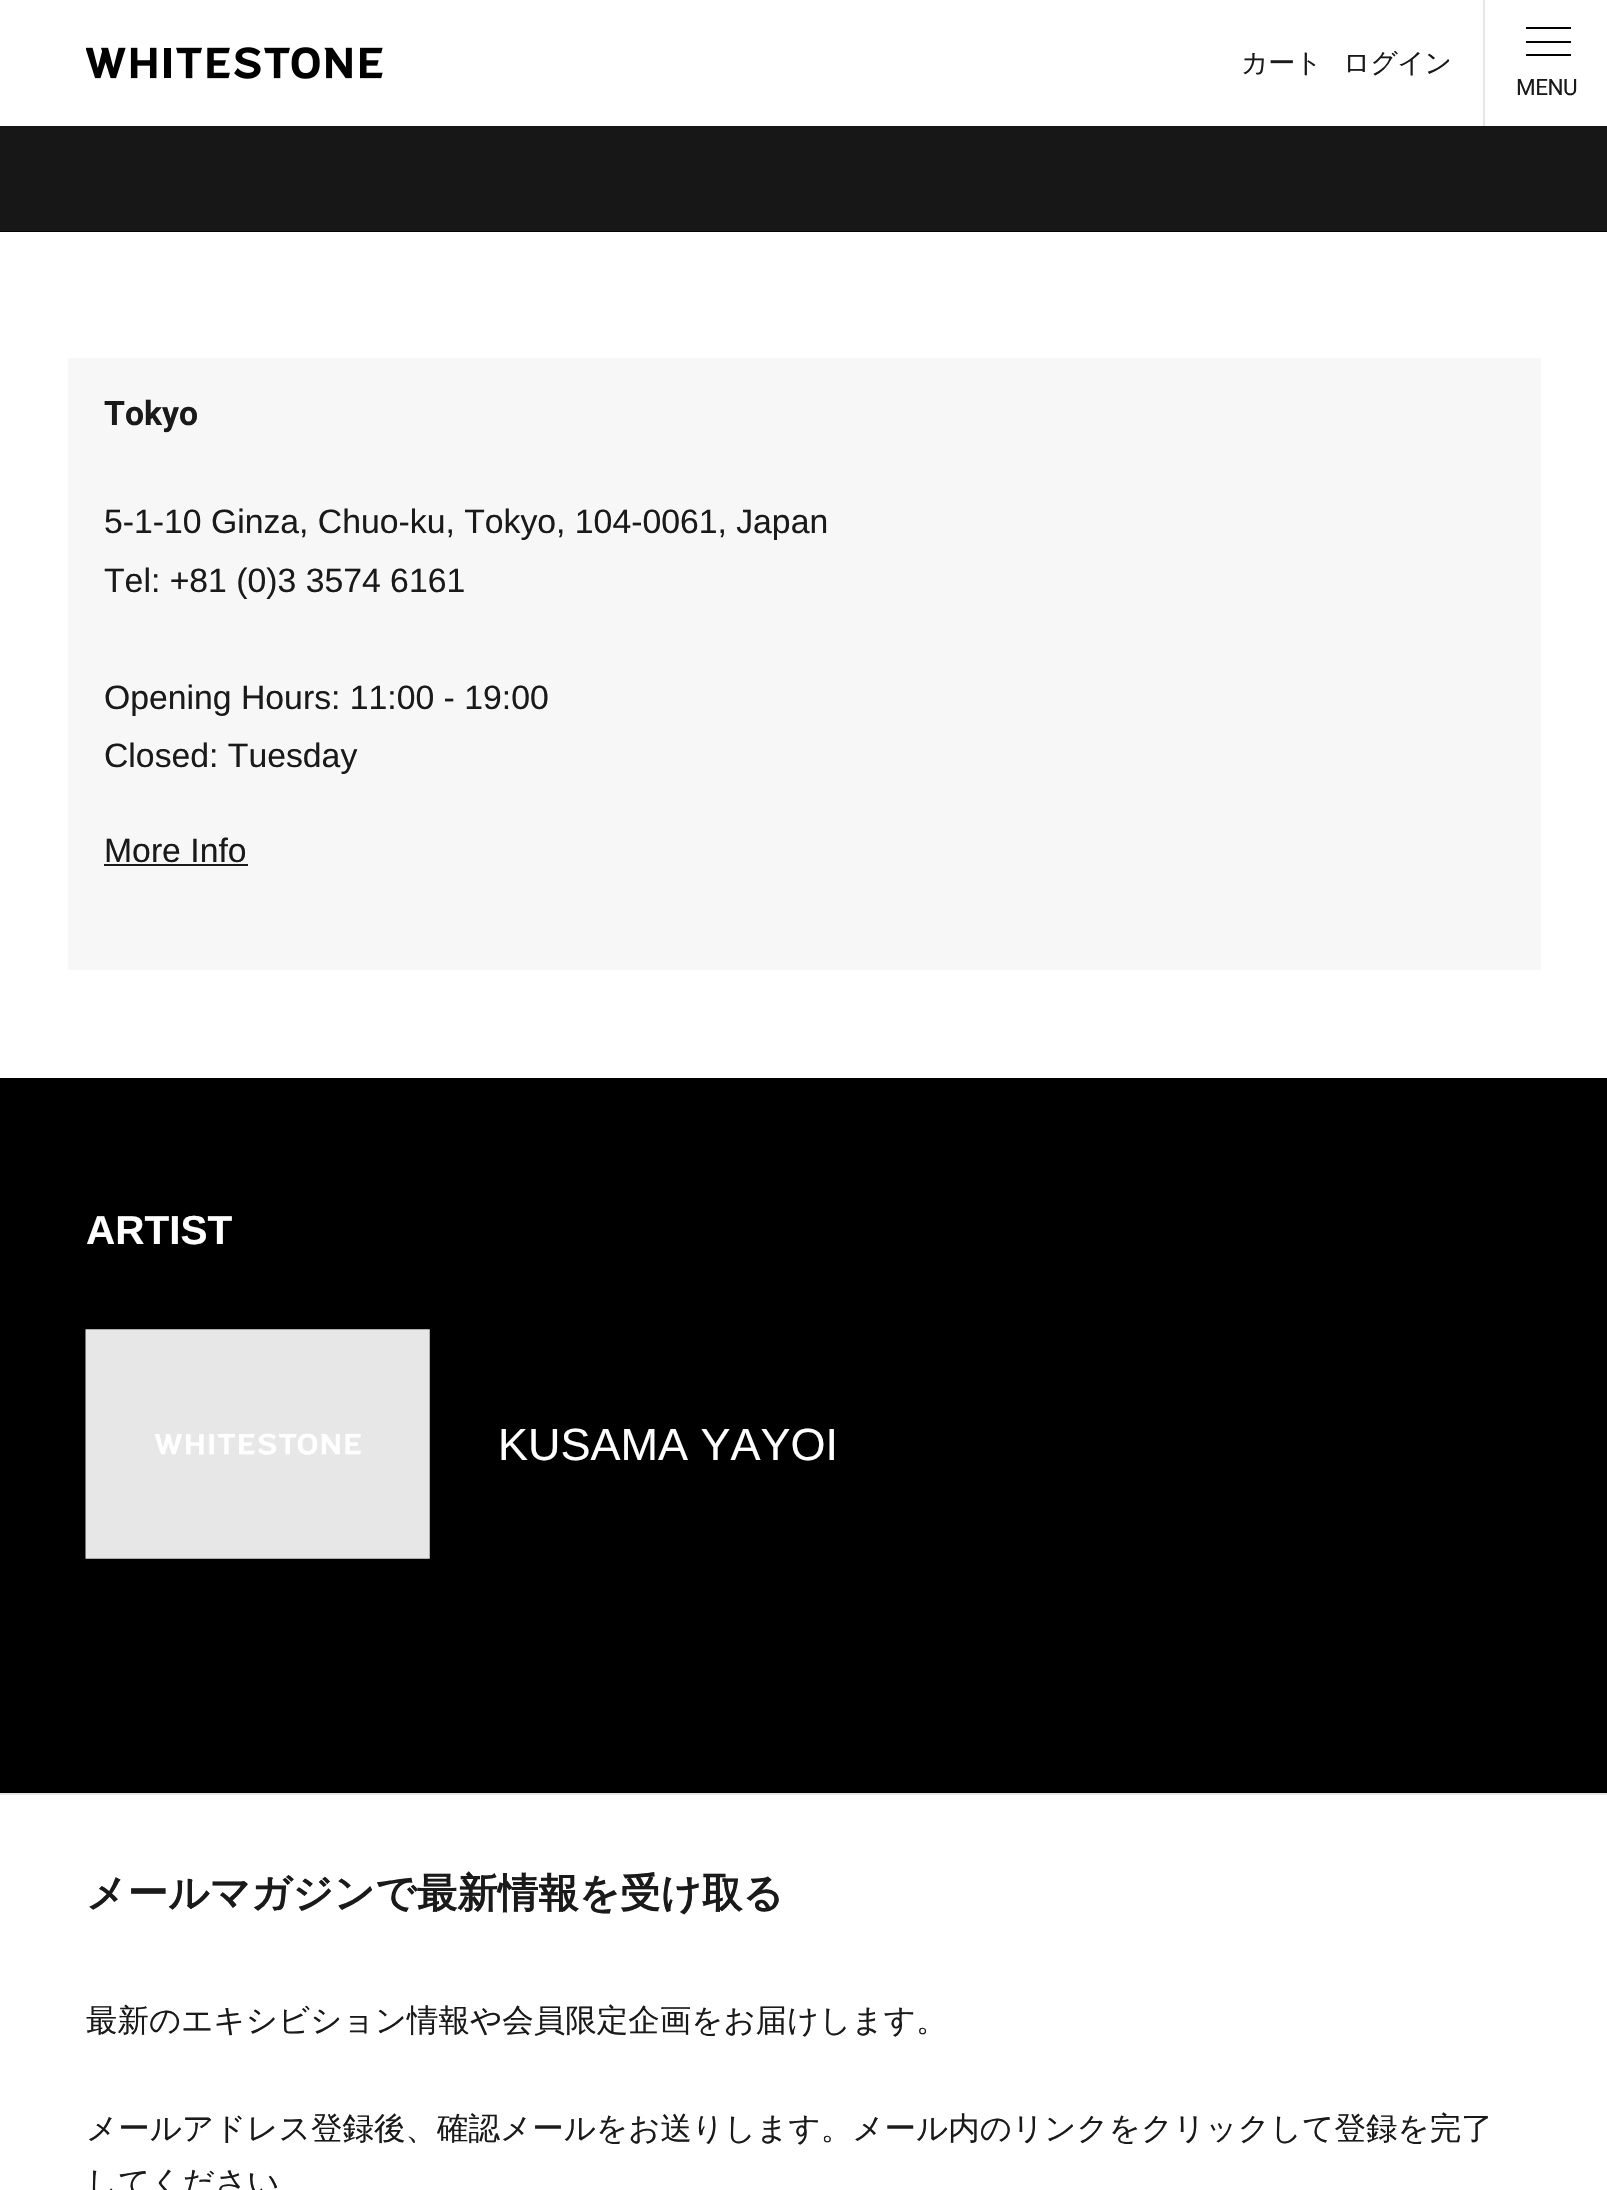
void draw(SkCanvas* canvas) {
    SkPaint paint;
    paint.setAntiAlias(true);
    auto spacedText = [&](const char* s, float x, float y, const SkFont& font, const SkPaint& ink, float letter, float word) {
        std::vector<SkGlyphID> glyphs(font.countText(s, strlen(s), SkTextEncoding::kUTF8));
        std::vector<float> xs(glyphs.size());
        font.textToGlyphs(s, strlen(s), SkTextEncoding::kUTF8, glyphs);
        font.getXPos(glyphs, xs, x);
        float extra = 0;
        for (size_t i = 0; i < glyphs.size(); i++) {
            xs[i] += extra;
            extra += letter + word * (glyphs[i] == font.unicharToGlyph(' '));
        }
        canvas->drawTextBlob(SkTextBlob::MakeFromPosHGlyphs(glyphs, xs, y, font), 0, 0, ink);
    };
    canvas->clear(0xFFFFFFFF);
    canvas->drawImageRect(SkImages::DeferredFromEncodedData(SkData::MakeFromFileName("img1.png")), SkRect::MakeXYWH(86, 47, 297, 32), SkSamplingOptions());
    SkFont font1(fontMgr->matchFamilyStyle("WenQuanYi Zen Hei", SkFontStyle(500, SkFontStyle::kNormal_Width, SkFontStyle::kUpright_Slant)), 27);
    font1.setSubpixel(true);
    paint.setColor(0xFF1A1A1A);
    spacedText("カート", 1241, 72, font1, paint, -0.5f, 0);
    spacedText("ログイン", 1343, 72, font1, paint, -0.5f, 0);
    paint.setColor(0xFFE5E5E5);
    canvas->drawRect(SkRect::MakeXYWH(1483, 0, 2, 126), paint);
    paint.setColor(0xFF000000);
    canvas->drawRect(SkRect::MakeXYWH(1526, 27, 45, 2), paint);
    canvas->drawRect(SkRect::MakeXYWH(1526, 41, 45, 2), paint);
    canvas->drawRect(SkRect::MakeXYWH(1526, 54, 45, 2), paint);
    SkFont font2(fontMgr->matchFamilyStyle("Roboto", SkFontStyle::Normal()), 22.5f);
    font2.setSubpixel(true);
    paint.setColor(0xFF1A1A1A);
    spacedText("MENU", 1516, 95, font2, paint, -0.5f, 0);
    paint.setColor(0xFF151515);
    canvas->drawRect(SkRect::MakeXYWH(0, 126, 1607, 2), paint);
    paint.setColor(0xFF000000);
    canvas->drawRect(SkRect::MakeXYWH(0, 128, 1607, 104), paint);
    canvas->drawImageRect(SkImages::DeferredFromEncodedData(SkData::MakeFromFileName("img2.png")), SkRect::MakeXYWH(0, 128, 1607, 104), SkSamplingOptions());
    paint.setColor(0xFFF7F7F7);
    canvas->drawRect(SkRect::MakeXYWH(68, 358, 1473, 612), paint);
    SkFont font3(fontMgr->matchFamilyStyle("Roboto", SkFontStyle::Bold()), 33.75f);
    font3.setSubpixel(true);
    paint.setColor(0xFF1A1A1A);
    canvas->drawString("Tokyo", 104, 425, font3, paint);
    SkFont font4(fontMgr->matchFamilyStyle("Liberation Sans", SkFontStyle::Normal()), 33.75f);
    font4.setSubpixel(true);
    canvas->drawString("5-1-10 Ginza, Chuo-ku, Tokyo, 104-0061, Japan", 104, 533, font4, paint);
    canvas->drawString("Tel: +81 (0)3 3574 6161", 104, 592, font4, paint);
    canvas->drawString("Opening Hours: 11:00 - 19:00", 104, 709, font4, paint);
    canvas->drawString("Closed: Tuesday", 104, 767, font4, paint);
    canvas->drawString("More Info", 104, 862, font4, paint);
    canvas->drawRect(SkRect::MakeXYWH(104, 864, 144, 2), paint);
    paint.setColor(0xFF000000);
    canvas->drawRect(SkRect::MakeXYWH(0, 1078, 1607, 715), paint);
    SkFont font5(fontMgr->matchFamilyStyle("Liberation Sans", SkFontStyle::Bold()), 40.5f);
    font5.setSubpixel(true);
    paint.setColor(0xFFFFFFFF);
    canvas->drawString("ARTIST", 86, 1244, font5, paint);
    canvas->drawImageRect(SkImages::DeferredFromEncodedData(SkData::MakeFromFileName("img3.png")), SkRect::MakeXYWH(85, 1329, 345, 230), SkSamplingOptions());
    SkFont font6(fontMgr->matchFamilyStyle("Liberation Sans", SkFontStyle::Normal()), 45);
    font6.setSubpixel(true);
    canvas->drawString("KUSAMA YAYOI", 498, 1460, font6, paint);
    paint.setColor(0xFFE5E5E5);
    canvas->drawRect(SkRect::MakeXYWH(0, 1793, 1607, 2), paint);
    SkFont font7(fontMgr->matchFamilyStyle("WenQuanYi Zen Hei", SkFontStyle::Bold()), 40.5f);
    font7.setSubpixel(true);
    paint.setColor(0xFF1A1A1A);
    canvas->drawString("メールマガジンで最新情報を受け取る", 86, 1907, font7, paint);
    SkFont font8(fontMgr->matchFamilyStyle("WenQuanYi Zen Hei", SkFontStyle(500, SkFontStyle::kNormal_Width, SkFontStyle::kUpright_Slant)), 31.5f);
    font8.setSubpixel(true);
    canvas->drawString("最新のエキシビション情報や会員限定企画をお届けします。", 86, 2031, font8, paint);
    canvas->drawString("メールアドレス登録後、確認メールをお送りします。メール内のリンクをクリックして登録を完了", 86, 2139, font8, paint);
    canvas->drawString("してください", 86, 2193, font8, paint);
}
